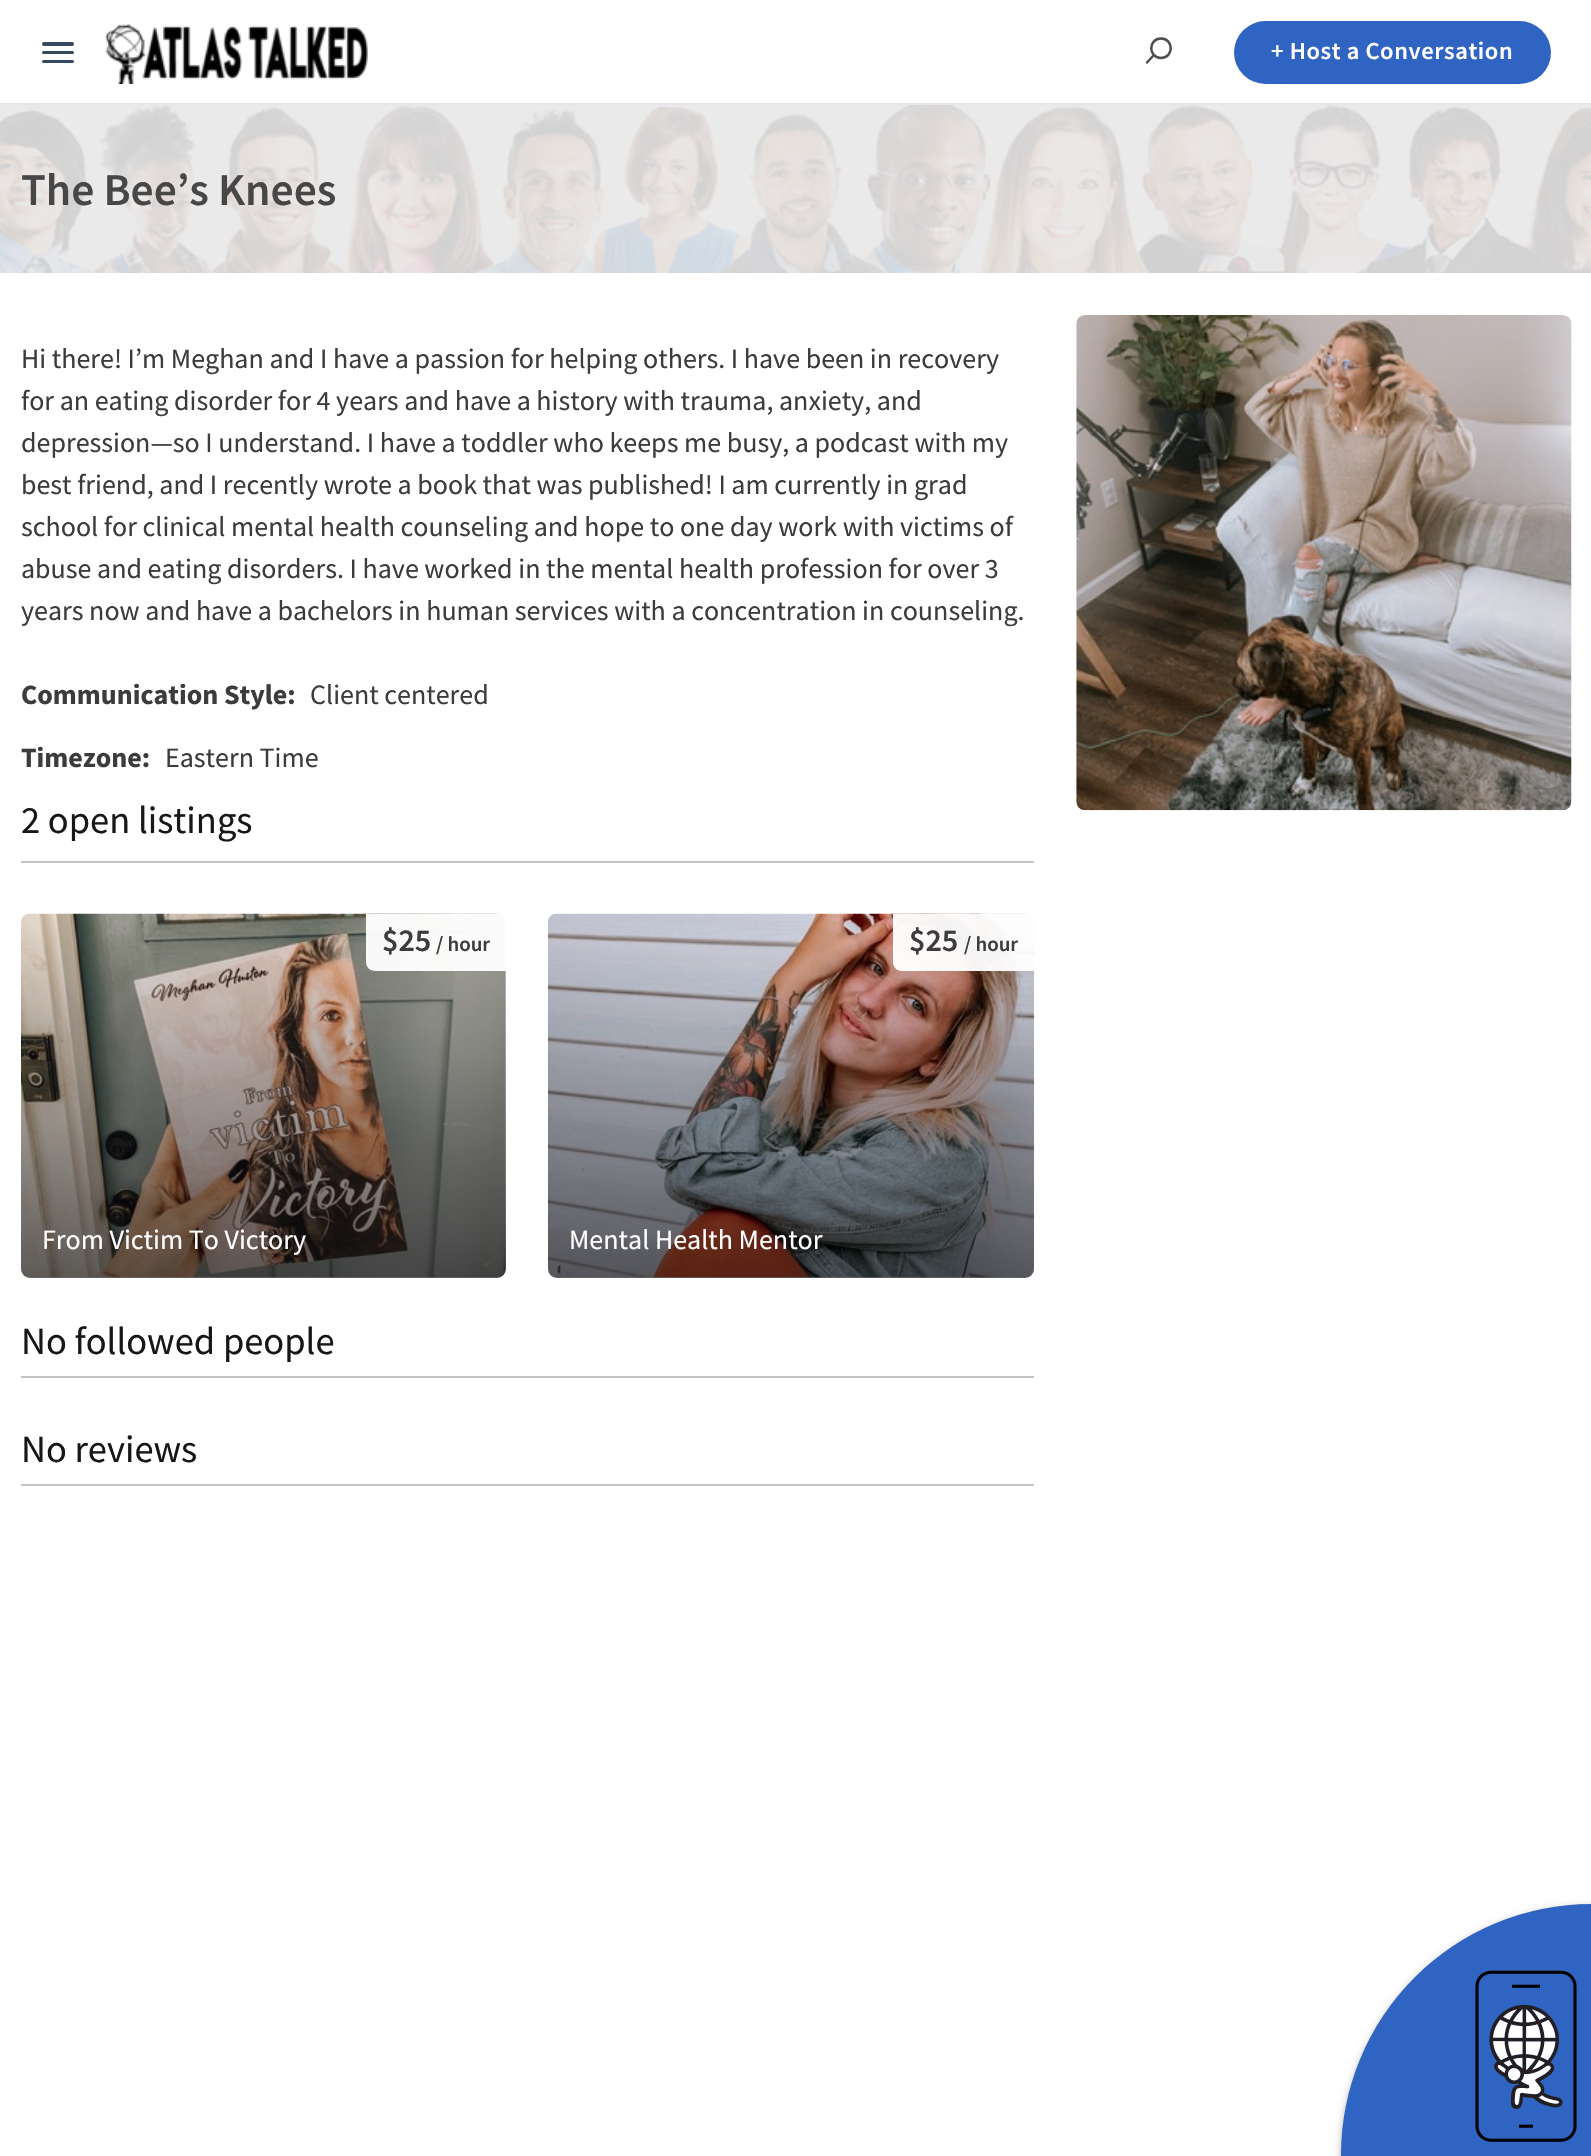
void draw(SkCanvas* canvas) {
    SkPaint paint;
    paint.setAntiAlias(true);
    auto spacedText = [&](const char* s, float x, float y, const SkFont& font, const SkPaint& ink, float letter, float word) {
        std::vector<SkGlyphID> glyphs(font.countText(s, strlen(s), SkTextEncoding::kUTF8));
        std::vector<float> xs(glyphs.size());
        font.textToGlyphs(s, strlen(s), SkTextEncoding::kUTF8, glyphs);
        font.getXPos(glyphs, xs, x);
        float extra = 0;
        for (size_t i = 0; i < glyphs.size(); i++) {
            xs[i] += extra;
            extra += letter + word * (glyphs[i] == font.unicharToGlyph(' '));
        }
        canvas->drawTextBlob(SkTextBlob::MakeFromPosHGlyphs(glyphs, xs, y, font), 0, 0, ink);
    };
    canvas->clear(0xFFFFFFFF);
    paint.setColor(0xFFE6E6EB);
    canvas->drawRect(SkRect::MakeXYWH(0, 103, 1591, 2), paint);
    paint.setColor(0xFF34495E);
    canvas->drawRoundRect(SkRect::MakeXYWH(42, 42, 32, 4), 2, 2, paint);
    canvas->drawRoundRect(SkRect::MakeXYWH(42, 51, 32, 3), 1.5f, 1.5f, paint);
    canvas->drawRoundRect(SkRect::MakeXYWH(42, 60, 32, 3), 1.5f, 1.5f, paint);
    canvas->drawImageRect(SkImages::DeferredFromEncodedData(SkData::MakeFromFileName("img1.png")), SkRect::MakeXYWH(105, 24, 263, 60), SkSamplingOptions());
    paint.setStyle(SkPaint::kStroke_Style);
    paint.setStrokeWidth(2.5f);
    paint.setStrokeCap(SkPaint::kRound_Cap);
    paint.setStrokeJoin(SkPaint::kRound_Join);
    paint.setColor(0xFF4D4D4D);
    canvas->drawPath(SkPathBuilder().moveTo(1152.5f, 56.5f).lineTo(1147, 62.5f).detach(), paint);
    paint.setColor(0xB3000000);
    canvas->drawPath(SkPathBuilder().moveTo(1161, 38.5f).cubicTo(1148, 38.5f, 1148, 58, 1161, 58).cubicTo(1174, 58, 1174, 38.5f, 1161, 38.5f).close().detach(), paint);
    paint.setStyle(SkPaint::kFill_Style);
    paint.setColor(0xFF2F64C2);
    canvas->drawRoundRect(SkRect::MakeXYWH(1234, 21, 317, 63), 31.5f, 31.5f, paint);
    SkFont font1(fontMgr->matchFamilyStyle("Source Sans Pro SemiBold", SkFontStyle(600, SkFontStyle::kNormal_Width, SkFontStyle::kUpright_Slant)), 24.5f);
    font1.setSubpixel(true);
    paint.setColor(0xFFFFFFFF);
    spacedText("+ Host a Conversation", 1271, 59, font1, paint, 0.6f, 0);
    canvas->drawImageRect(SkImages::DeferredFromEncodedData(SkData::MakeFromFileName("img2.png")), SkRect::MakeXYWH(0, 105, 1591, 168), SkSamplingOptions());
    SkFont font2(fontMgr->matchFamilyStyle("Source Sans Pro SemiBold", SkFontStyle(600, SkFontStyle::kNormal_Width, SkFontStyle::kUpright_Slant)), 45.5f);
    font2.setSubpixel(true);
    paint.setColor(0xFF474747);
    canvas->drawString("The Bee’s Knees", 21, 205, font2, paint);
    SkFont font3(fontMgr->matchFamilyStyle("Source Sans Pro", SkFontStyle::Normal()), 28);
    font3.setSubpixel(true);
    paint.setColor(0xFF3C3C3C);
    canvas->drawString("Hi there! I’m Meghan and I have a passion for helping others. I have been in recovery", 21, 368, font3, paint);
    canvas->drawString("for an eating disorder for 4 years and have a history with trauma, anxiety, and", 21, 410, font3, paint);
    canvas->drawString("depression—so I understand. I have a toddler who keeps me busy, a podcast with my", 21, 452, font3, paint);
    canvas->drawString("best friend, and I recently wrote a book that was published! I am currently in grad", 21, 494, font3, paint);
    canvas->drawString("school for clinical mental health counseling and hope to one day work with victims of", 21, 536, font3, paint);
    canvas->drawString("abuse and eating disorders. I have worked in the mental health profession for over 3", 21, 578, font3, paint);
    canvas->drawString("years now and have a bachelors in human services with a concentration in counseling.", 21, 620, font3, paint);
    SkFont font4(fontMgr->matchFamilyStyle("Source Sans Pro", SkFontStyle::Bold()), 28);
    font4.setSubpixel(true);
    canvas->drawString("Communication Style:", 21, 704, font4, paint);
    canvas->drawString("Client centered", 310, 704, font3, paint);
    canvas->drawString("Timezone:", 21, 767, font4, paint);
    canvas->drawString("Eastern Time", 165, 767, font3, paint);
    paint.setColor(0xFFC3C3C3);
    canvas->drawRect(SkRect::MakeXYWH(21, 861, 1013, 2), paint);
    SkFont font5(fontMgr->matchFamilyStyle("Source Sans Pro", SkFontStyle::Normal()), 38.5f);
    font5.setSubpixel(true);
    paint.setColor(0xFF171717);
    canvas->drawString("2 open listings", 21, 833, font5, paint);
    canvas->drawImageRect(SkImages::DeferredFromEncodedData(SkData::MakeFromFileName("img3.png")), SkRect::MakeXYWH(21, 913, 485, 365), SkSamplingOptions());
    {
        const SkColor colors[] = {0x00000000, 0x99000000};
        const float stops[] = {0, 1};
        const SkPoint ends[] = {{263, 914}, {263, 1278}};
        paint.setShader(SkGradientShader::MakeLinear(ends, colors, stops, 2, SkTileMode::kClamp));
        paint.setAlpha(255);
    }
    canvas->drawRoundRect(SkRect::MakeXYWH(21, 914, 485, 364), 9, 9, paint);
    paint.setShader(nullptr);
    paint.setColor(0xF2FFFFFF);
    canvas->drawPath(SkPathBuilder().moveTo(366, 914).lineTo(506, 914).lineTo(506, 971).lineTo(375, 971).cubicTo(370, 971, 366, 967, 366, 962).close().detach(), paint);
    SkFont font6(fontMgr->matchFamilyStyle("Source Sans Pro SemiBold", SkFontStyle(600, SkFontStyle::kNormal_Width, SkFontStyle::kUpright_Slant)), 32);
    font6.setSubpixel(true);
    paint.setColor(0xFF3C3C3C);
    canvas->drawString("$25", 382, 951, font6, paint);
    SkFont font7(fontMgr->matchFamilyStyle("Source Sans Pro SemiBold", SkFontStyle(600, SkFontStyle::kNormal_Width, SkFontStyle::kUpright_Slant)), 21);
    font7.setSubpixel(true);
    canvas->drawString("/ hour", 436, 951, font7, paint);
    paint.setColor(0xFFFFFFFF);
    canvas->drawString("From Victim To Victory", 42, 1249, font3, paint);
    canvas->drawImageRect(SkImages::DeferredFromEncodedData(SkData::MakeFromFileName("img4.png")), SkRect::MakeXYWH(547, 913, 488, 365), SkSamplingOptions());
    {
        const SkColor colors[] = {0x00000000, 0x99000000};
        const float stops[] = {0, 1};
        const SkPoint ends[] = {{791, 914}, {791, 1278}};
        paint.setShader(SkGradientShader::MakeLinear(ends, colors, stops, 2, SkTileMode::kClamp));
        paint.setAlpha(255);
    }
    canvas->drawRoundRect(SkRect::MakeXYWH(548, 914, 486, 364), 9, 9, paint);
    paint.setShader(nullptr);
    paint.setColor(0xF2FFFFFF);
    canvas->drawPath(SkPathBuilder().moveTo(893, 914).lineTo(1034, 914).lineTo(1034, 971).lineTo(902, 971).cubicTo(897, 971, 893, 967, 893, 962).close().detach(), paint);
    paint.setColor(0xFF3C3C3C);
    canvas->drawString("$25", 909, 951, font6, paint);
    canvas->drawString("/ hour", 964, 951, font7, paint);
    paint.setColor(0xFFFFFFFF);
    canvas->drawString("Mental Health Mentor", 569, 1249, font3, paint);
    paint.setColor(0xFFC3C3C3);
    canvas->drawRect(SkRect::MakeXYWH(21, 1376, 1013, 2), paint);
    paint.setColor(0xFF171717);
    canvas->drawString("No followed people", 21, 1354, font5, paint);
    paint.setColor(0xFFC3C3C3);
    canvas->drawRect(SkRect::MakeXYWH(21, 1484, 1013, 2), paint);
    paint.setColor(0xFF171717);
    canvas->drawString("No reviews", 21, 1462, font5, paint);
    canvas->drawImageRect(SkImages::DeferredFromEncodedData(SkData::MakeFromFileName("img5.png")), SkRect::MakeXYWH(1076, 315, 496, 496), SkSamplingOptions());
    paint.setColor(0x33000000);
    paint.setMaskFilter(SkMaskFilter::MakeBlur(kNormal_SkBlurStyle, 4.5f));
    canvas->drawRoundRect(SkRect::MakeXYWH(1341, 1906, 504, 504), 252, 252, paint);
    paint.setMaskFilter(nullptr);
    paint.setColor(0x24000000);
    paint.setMaskFilter(SkMaskFilter::MakeBlur(kNormal_SkBlurStyle, 2));
    canvas->drawRoundRect(SkRect::MakeXYWH(1341, 1908, 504, 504), 252, 252, paint);
    paint.setMaskFilter(nullptr);
    paint.setColor(0xFF2F64C2);
    canvas->drawRoundRect(SkRect::MakeXYWH(1341, 1904, 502, 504), 252, 252, paint);
    canvas->drawImageRect(SkImages::DeferredFromEncodedData(SkData::MakeFromFileName("img6.png")), SkRect::MakeXYWH(1475, 1970, 102, 172), SkSamplingOptions());
}
